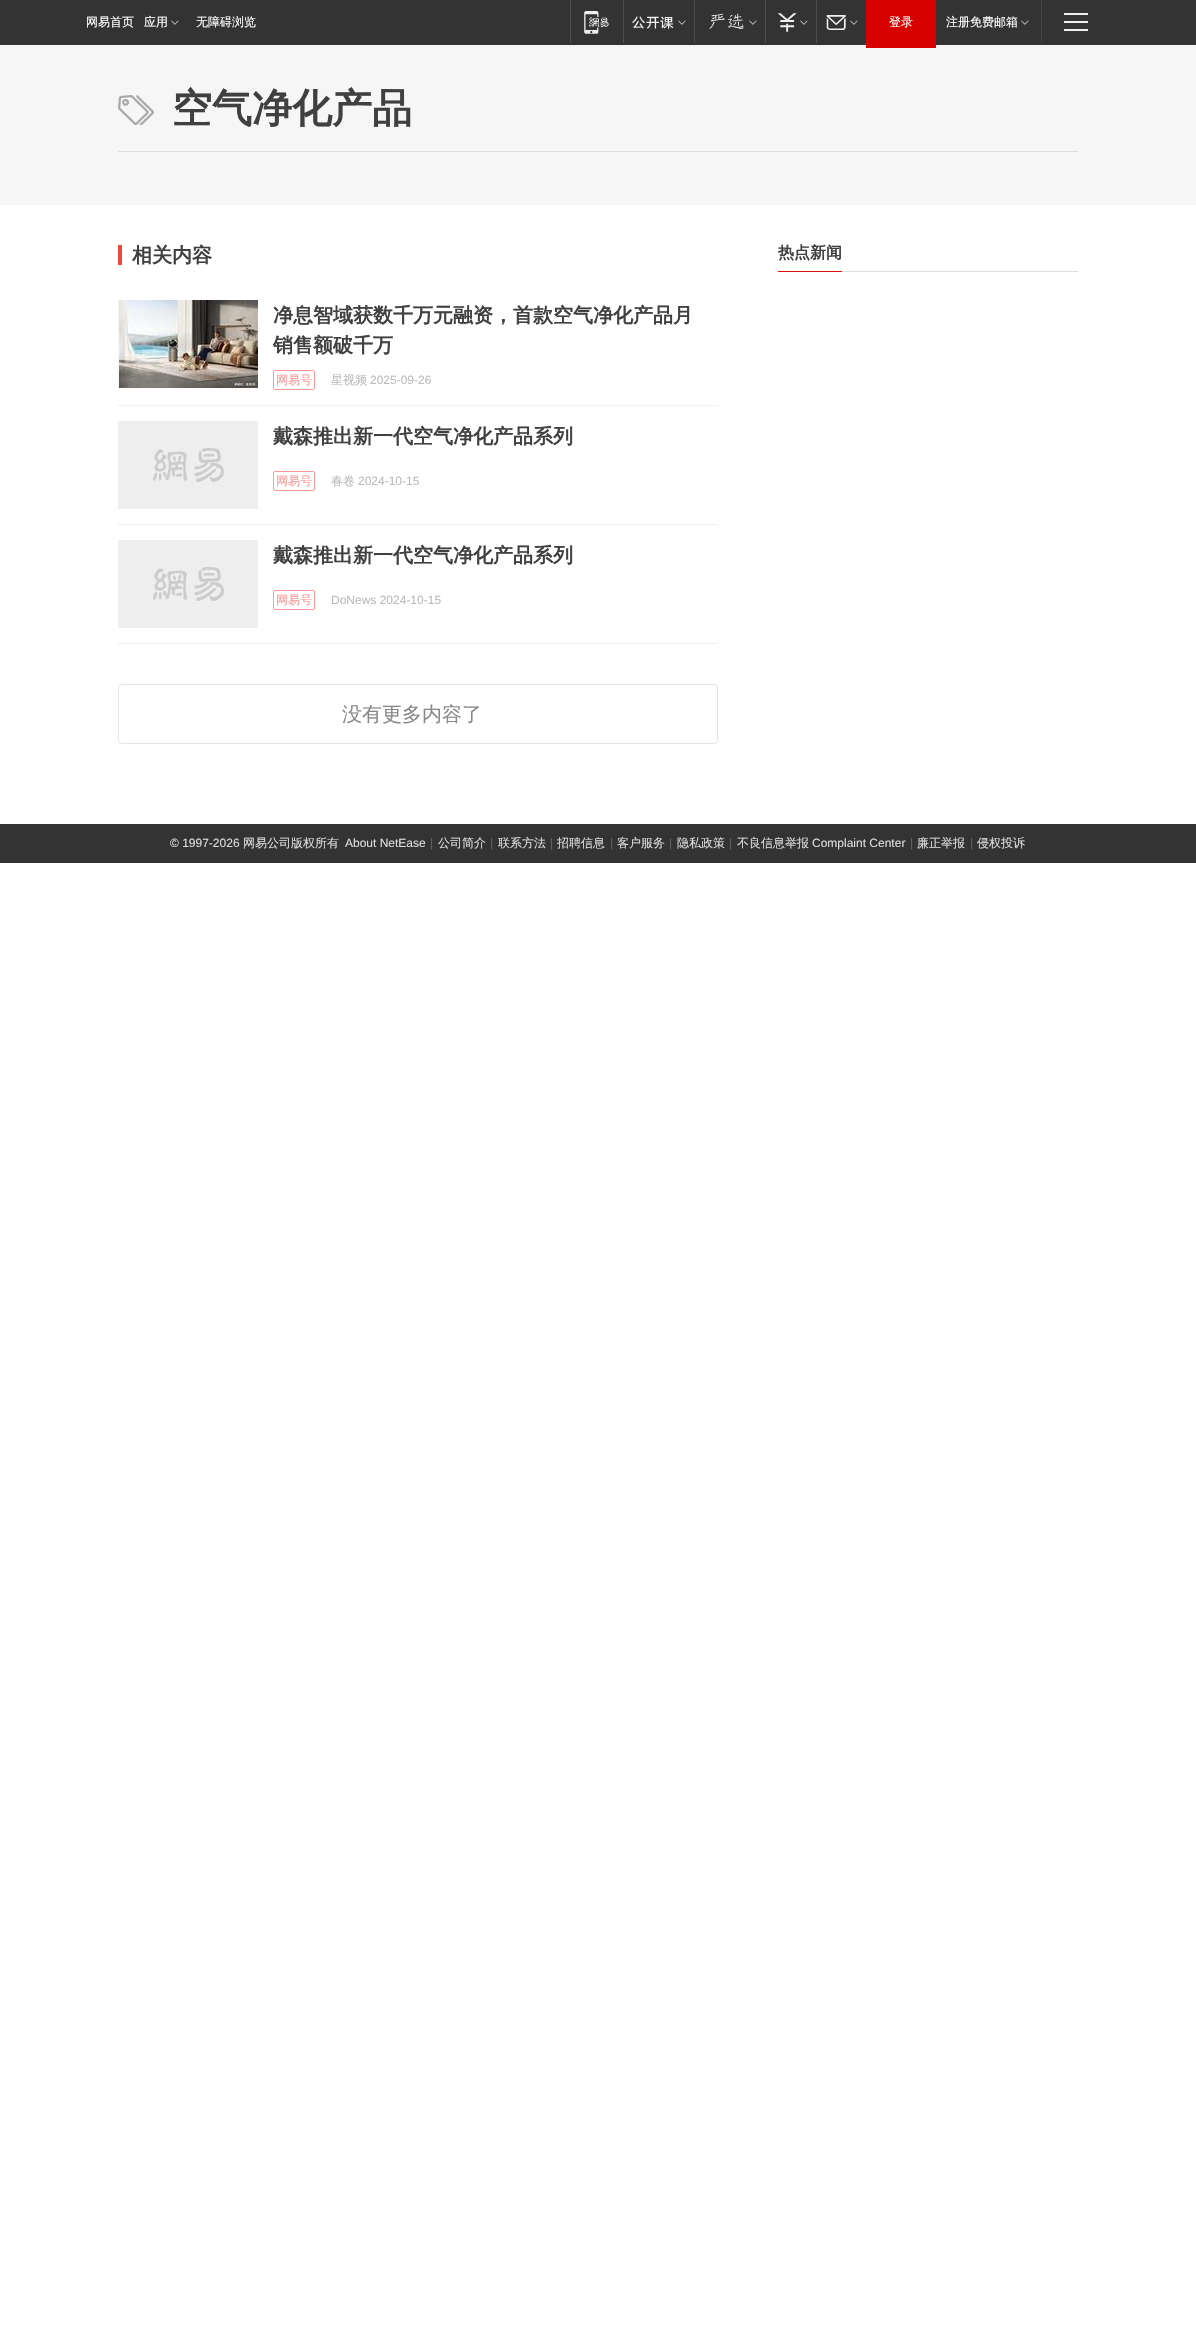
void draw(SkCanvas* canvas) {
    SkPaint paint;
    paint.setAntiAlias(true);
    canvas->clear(0xFFFFFFFF);
    paint.setColor(0xFF333333);
    canvas->drawRect(SkRect::MakeXYWH(0, 0, 1196, 45), paint);
    SkFont font1(fontMgr->matchFamilyStyle("WenQuanYi Zen Hei", SkFontStyle(500, SkFontStyle::kNormal_Width, SkFontStyle::kUpright_Slant)), 12);
    font1.setSubpixel(true);
    paint.setColor(0xFFFFFFFF);
    canvas->drawString("网易首页", 86, 26, font1, paint);
    canvas->drawString("应用", 144, 26, font1, paint);
    canvas->drawImageRect(SkImages::DeferredFromEncodedData(SkData::MakeFromFileName("img1.png")), SkRect::MakeXYWH(171, 20, 8, 5), SkSamplingOptions());
    canvas->drawString("无障碍浏览", 196, 26, font1, paint);
    paint.setColor(0xFF4D4D4D);
    canvas->drawRect(SkRect::MakeXYWH(570, 0, 1, 43), paint);
    canvas->drawImageRect(SkImages::DeferredFromEncodedData(SkData::MakeFromFileName("img2.png")), SkRect::MakeXYWH(584, 11, 25, 23), SkSamplingOptions());
    canvas->drawRect(SkRect::MakeXYWH(623, 0, 1, 43), paint);
    canvas->drawImageRect(SkImages::DeferredFromEncodedData(SkData::MakeFromFileName("img3.png")), SkRect::MakeXYWH(632, 16, 42, 13), SkSamplingOptions());
    canvas->drawImageRect(SkImages::DeferredFromEncodedData(SkData::MakeFromFileName("img1.png")), SkRect::MakeXYWH(678, 20, 8, 5), SkSamplingOptions());
    canvas->drawRect(SkRect::MakeXYWH(694, 0, 1, 43), paint);
    canvas->drawImageRect(SkImages::DeferredFromEncodedData(SkData::MakeFromFileName("img4.png")), SkRect::MakeXYWH(709, 13, 35, 16), SkSamplingOptions());
    canvas->drawImageRect(SkImages::DeferredFromEncodedData(SkData::MakeFromFileName("img1.png")), SkRect::MakeXYWH(749, 20, 8, 5), SkSamplingOptions());
    canvas->drawRect(SkRect::MakeXYWH(765, 0, 1, 43), paint);
    canvas->drawImageRect(SkImages::DeferredFromEncodedData(SkData::MakeFromFileName("img5.png")), SkRect::MakeXYWH(777, 13, 20, 19), SkSamplingOptions());
    canvas->drawImageRect(SkImages::DeferredFromEncodedData(SkData::MakeFromFileName("img1.png")), SkRect::MakeXYWH(800, 20, 8, 5), SkSamplingOptions());
    canvas->drawRect(SkRect::MakeXYWH(816, 0, 1, 43), paint);
    canvas->drawImageRect(SkImages::DeferredFromEncodedData(SkData::MakeFromFileName("img6.png")), SkRect::MakeXYWH(826, 15, 20, 15), SkSamplingOptions());
    canvas->drawImageRect(SkImages::DeferredFromEncodedData(SkData::MakeFromFileName("img1.png")), SkRect::MakeXYWH(850, 20, 8, 5), SkSamplingOptions());
    paint.setColor(0xFFF6F6F6);
    canvas->drawRect(SkRect::MakeXYWH(0, 45, 1196, 160), paint);
    paint.setColor(0xFFD60000);
    canvas->drawRect(SkRect::MakeXYWH(866, 0, 70, 48), paint);
    paint.setColor(0xFFFFFFFF);
    canvas->drawString("登录", 889, 26, font1, paint);
    canvas->drawString("注册免费邮箱", 946, 26, font1, paint);
    canvas->drawImageRect(SkImages::DeferredFromEncodedData(SkData::MakeFromFileName("img1.png")), SkRect::MakeXYWH(1021, 20, 8, 5), SkSamplingOptions());
    paint.setColor(0xFF444444);
    canvas->drawRect(SkRect::MakeXYWH(1041, 0, 1, 43), paint);
    paint.setColor(0xFFEFEFEF);
    canvas->drawRect(SkRect::MakeXYWH(1064, 13, 24, 2), paint);
    canvas->drawRect(SkRect::MakeXYWH(1064, 21, 24, 2), paint);
    canvas->drawRect(SkRect::MakeXYWH(1064, 29, 24, 2), paint);
    canvas->drawImageRect(SkImages::DeferredFromEncodedData(SkData::MakeFromFileName("img7.png")), SkRect::MakeXYWH(118, 95, 36, 30), SkSamplingOptions());
    paint.setColor(0xFFDDDDDD);
    canvas->drawRect(SkRect::MakeXYWH(118, 151, 960, 1), paint);
    SkFont font2(fontMgr->matchFamilyStyle("WenQuanYi Zen Hei", SkFontStyle::Bold()), 40);
    font2.setSubpixel(true);
    paint.setColor(0xFF404040);
    canvas->drawString("空气净化产品", 172, 122, font2, paint);
    paint.setColor(0xFFF34540);
    canvas->drawRect(SkRect::MakeXYWH(118, 245, 4, 20), paint);
    SkFont font3(fontMgr->matchFamilyStyle("WenQuanYi Zen Hei", SkFontStyle::Bold()), 20);
    font3.setSubpixel(true);
    paint.setColor(0xFF404040);
    canvas->drawString("相关内容", 132, 262, font3, paint);
    paint.setColor(0xFFF0F0F0);
    canvas->drawRect(SkRect::MakeXYWH(118, 405, 600, 1), paint);
    paint.setColor(0xFFF6F6F6);
    canvas->drawRect(SkRect::MakeXYWH(118, 300, 1, 88), paint);
    canvas->drawImageRect(SkImages::DeferredFromEncodedData(SkData::MakeFromFileName("img8.png")), SkRect::MakeXYWH(119, 300, 139, 88), SkSamplingOptions());
    paint.setColor(0xFF404040);
    canvas->drawString("净息智域获数千万元融资，首款空气净化产品月", 273, 322, font3, paint);
    canvas->drawString("销售额破千万", 273, 352, font3, paint);
    paint.setStyle(SkPaint::kStroke_Style);
    paint.setStrokeWidth(1);
    paint.setColor(0xFFFF9999);
    canvas->drawRoundRect(SkRect::MakeXYWH(273.5f, 370.5f, 41, 19), 1.5f, 1.5f, paint);
    paint.setStyle(SkPaint::kFill_Style);
    canvas->drawString("网易号", 276, 384, font1, paint);
    paint.setColor(0xFFBBBBBB);
    canvas->drawString("星视频", 331, 384, font1, paint);
    SkFont font4(fontMgr->matchFamilyStyle("Liberation Sans", SkFontStyle::Normal()), 12);
    font4.setSubpixel(true);
    canvas->drawString("2025-09-26", 370, 384, font4, paint);
    paint.setColor(0xFFF0F0F0);
    canvas->drawRect(SkRect::MakeXYWH(118, 524, 600, 1), paint);
    canvas->drawImageRect(SkImages::DeferredFromEncodedData(SkData::MakeFromFileName("img9.png")), SkRect::MakeXYWH(118, 421, 140, 88), SkSamplingOptions());
    paint.setColor(0xFF404040);
    canvas->drawString("戴森推出新一代空气净化产品系列", 273, 443, font3, paint);
    paint.setStyle(SkPaint::kStroke_Style);
    paint.setColor(0xFFFF9999);
    canvas->drawRoundRect(SkRect::MakeXYWH(273.5f, 471.5f, 41, 19), 1.5f, 1.5f, paint);
    paint.setStyle(SkPaint::kFill_Style);
    canvas->drawString("网易号", 276, 485, font1, paint);
    paint.setColor(0xFFBBBBBB);
    canvas->drawString("春卷", 331, 485, font1, paint);
    canvas->drawString("2024-10-15", 358, 485, font4, paint);
    paint.setColor(0xFFF0F0F0);
    canvas->drawRect(SkRect::MakeXYWH(118, 643, 600, 1), paint);
    canvas->drawImageRect(SkImages::DeferredFromEncodedData(SkData::MakeFromFileName("img9.png")), SkRect::MakeXYWH(118, 540, 140, 88), SkSamplingOptions());
    paint.setColor(0xFF404040);
    canvas->drawString("戴森推出新一代空气净化产品系列", 273, 562, font3, paint);
    paint.setStyle(SkPaint::kStroke_Style);
    paint.setColor(0xFFFF9999);
    canvas->drawRoundRect(SkRect::MakeXYWH(273.5f, 590.5f, 41, 19), 1.5f, 1.5f, paint);
    paint.setStyle(SkPaint::kFill_Style);
    canvas->drawString("网易号", 276, 604, font1, paint);
    paint.setColor(0xFFBBBBBB);
    canvas->drawString("DoNews 2024-10-15", 331, 604, font4, paint);
    paint.setStyle(SkPaint::kStroke_Style);
    paint.setColor(0xFFE5E5E5);
    canvas->drawRoundRect(SkRect::MakeXYWH(118.5f, 684.5f, 599, 59), 3.5f, 3.5f, paint);
    SkFont font5(fontMgr->matchFamilyStyle("WenQuanYi Zen Hei", SkFontStyle(500, SkFontStyle::kNormal_Width, SkFontStyle::kUpright_Slant)), 20);
    font5.setSubpixel(true);
    paint.setStyle(SkPaint::kFill_Style);
    paint.setColor(0xFF888888);
    canvas->drawString("没有更多内容了", 342, 721, font5, paint);
    paint.setColor(0xFFDDDDDD);
    canvas->drawRect(SkRect::MakeXYWH(842, 271, 236, 1), paint);
    SkFont font6(fontMgr->matchFamilyStyle("WenQuanYi Zen Hei", SkFontStyle::Bold()), 16);
    font6.setSubpixel(true);
    paint.setColor(0xFF404040);
    canvas->drawString("热点新闻", 778, 258, font6, paint);
    paint.setColor(0xFFDB1011);
    canvas->drawRect(SkRect::MakeXYWH(778, 271, 64, 1), paint);
    paint.setColor(0xFF333333);
    canvas->drawRect(SkRect::MakeXYWH(0, 824, 1196, 39), paint);
    paint.setColor(0xFFDDDDDD);
    canvas->drawString("© 1997-2026", 170, 847, font4, paint);
    canvas->drawString("网易公司版权所有", 243, 847, font1, paint);
    canvas->drawString("About NetEase", 345, 847, font4, paint);
    paint.setColor(0xFF616161);
    canvas->drawString("|", 430, 847, font4, paint);
    paint.setColor(0xFFDDDDDD);
    canvas->drawString("公司简介", 438, 847, font1, paint);
    paint.setColor(0xFF616161);
    canvas->drawString("|", 490, 847, font4, paint);
    paint.setColor(0xFFDDDDDD);
    canvas->drawString("联系方法", 498, 847, font1, paint);
    paint.setColor(0xFF616161);
    canvas->drawString("|", 550, 847, font4, paint);
    paint.setColor(0xFFDDDDDD);
    canvas->drawString("招聘信息", 557, 847, font1, paint);
    paint.setColor(0xFF616161);
    canvas->drawString("|", 610, 847, font4, paint);
    paint.setColor(0xFFDDDDDD);
    canvas->drawString("客户服务", 617, 847, font1, paint);
    paint.setColor(0xFF616161);
    canvas->drawString("|", 669, 847, font4, paint);
    paint.setColor(0xFFDDDDDD);
    canvas->drawString("隐私政策", 677, 847, font1, paint);
    paint.setColor(0xFF616161);
    canvas->drawString("|", 729, 847, font4, paint);
    paint.setColor(0xFFDDDDDD);
    canvas->drawString("不良信息举报", 737, 847, font1, paint);
    canvas->drawString("Complaint Center", 812, 847, font4, paint);
    paint.setColor(0xFF616161);
    canvas->drawString("|", 910, 847, font4, paint);
    paint.setColor(0xFFDDDDDD);
    canvas->drawString("廉正举报", 917, 847, font1, paint);
    paint.setColor(0xFF616161);
    canvas->drawString("|", 970, 847, font4, paint);
    paint.setColor(0xFFDDDDDD);
    canvas->drawString("侵权投诉", 977, 847, font1, paint);
}
